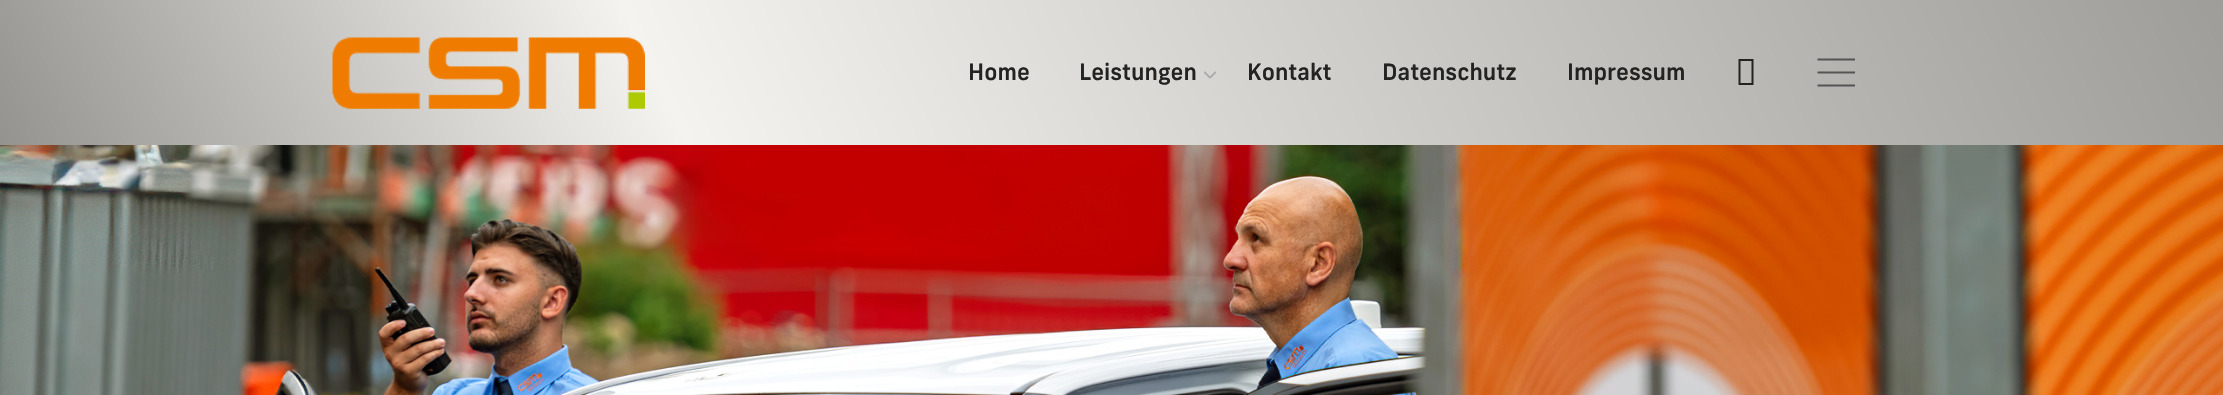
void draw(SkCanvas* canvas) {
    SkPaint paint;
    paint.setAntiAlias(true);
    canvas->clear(0xFFFFFFFF);
    {
        const SkColor colors[] = {0xFF94938F, 0xFFF5F3F0, 0xFF9E9D99};
        const float stops[] = {0, 0.3f, 1};
        const SkPoint ends[] = {{171, 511}, {2053, -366}};
        paint.setShader(SkGradientShader::MakeLinear(ends, colors, stops, 3, SkTileMode::kClamp));
        paint.setAlpha(255);
    }
    canvas->drawRect(SkRect::MakeXYWH(0, 0, 2223, 145), paint);
    canvas->drawImageRect(SkImages::DeferredFromEncodedData(SkData::MakeFromFileName("img1.png")), SkRect::MakeXYWH(332, 37, 313, 72), SkSamplingOptions());
    SkFont font1(fontMgr->matchFamilyStyle("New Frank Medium", SkFontStyle(500, SkFontStyle::kNormal_Width, SkFontStyle::kUpright_Slant)), 22.5f);
    font1.setSubpixel(true);
    paint.setShader(nullptr);
    paint.setColor(0xFF232321);
    canvas->drawString("Home", 968, 80, font1, paint);
    canvas->drawString("Leistungen", 1079, 80, font1, paint);
    canvas->drawImageRect(SkImages::DeferredFromEncodedData(SkData::MakeFromFileName("img2.png")), SkRect::MakeXYWH(1204, 71, 12, 8), SkSamplingOptions());
    canvas->drawString("Kontakt", 1247, 80, font1, paint);
    canvas->drawString("Datenschutz", 1382, 80, font1, paint);
    canvas->drawString("Impressum", 1567, 80, font1, paint);
    canvas->drawPath(SkPathBuilder().moveTo(1738.5f, 85).lineTo(1738.5f, 59).lineTo(1753.5f, 59).lineTo(1753.5f, 85).close().moveTo(1740.5f, 83).lineTo(1751.5f, 83).lineTo(1751.5f, 61).lineTo(1740.5f, 61).close().detach(), paint);
    paint.setStyle(SkPaint::kStroke_Style);
    paint.setStrokeWidth(1.9f);
    paint.setColor(0xFF545454);
    canvas->drawPath(SkPathBuilder().moveTo(1817.5f, 59.5f).lineTo(1855, 59.5f).moveTo(1817.5f, 72.5f).lineTo(1855, 72.5f).moveTo(1817.5f, 85.5f).lineTo(1855, 85.5f).detach(), paint);
    canvas->drawImageRect(SkImages::DeferredFromEncodedData(SkData::MakeFromFileName("img3.png")), SkRect::MakeXYWH(0, 145, 2223, 250), SkSamplingOptions());
}
